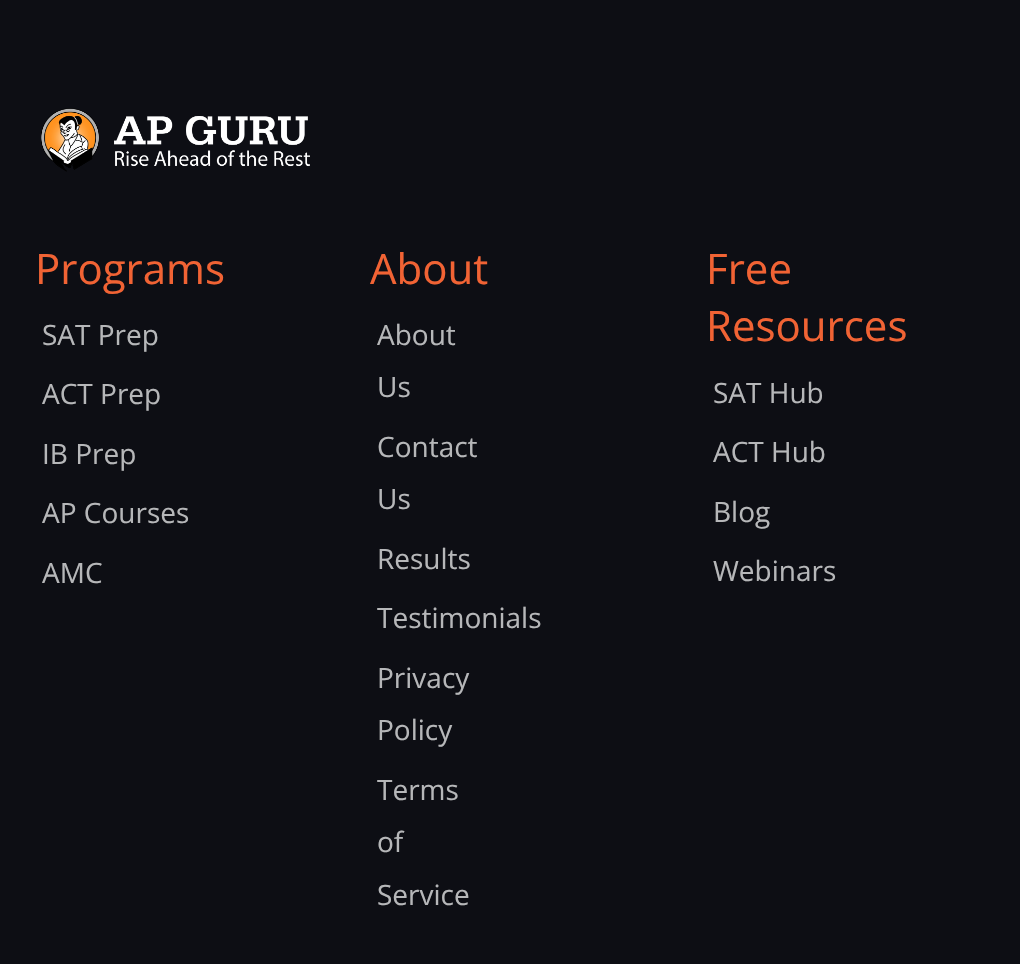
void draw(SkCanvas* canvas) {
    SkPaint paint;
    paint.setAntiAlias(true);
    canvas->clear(0xFF0D0E14);
    canvas->drawImageRect(SkImages::DeferredFromEncodedData(SkData::MakeFromFileName("img1.png")), SkRect::MakeXYWH(41, 108, 269, 64), SkSamplingOptions());
    SkFont font1(fontMgr->matchFamilyStyle("Open Sans", SkFontStyle::Normal()), 42);
    font1.setSubpixel(true);
    paint.setColor(0xFFF16334);
    canvas->drawString("Programs", 35, 284, font1, paint);
    SkFont font2(fontMgr->matchFamilyStyle("Open Sans", SkFontStyle::Normal()), 28);
    font2.setSubpixel(true);
    paint.setColor(0xFFB6B7B9);
    canvas->drawString("SAT Prep", 42, 345, font2, paint);
    canvas->drawString("ACT Prep", 42, 404, font2, paint);
    canvas->drawString("IB Prep", 42, 464, font2, paint);
    canvas->drawString("AP Courses", 42, 523, font2, paint);
    canvas->drawString("AMC", 42, 583, font2, paint);
    paint.setColor(0xFFF16334);
    canvas->drawString("About", 370, 284, font1, paint);
    paint.setColor(0xFFB6B7B9);
    canvas->drawString("About", 377, 345, font2, paint);
    canvas->drawString("Us", 377, 397, font2, paint);
    canvas->drawString("Contact", 377, 457, font2, paint);
    canvas->drawString("Us", 377, 509, font2, paint);
    canvas->drawString("Results", 377, 569, font2, paint);
    canvas->drawString("Testimonials", 377, 628, font2, paint);
    canvas->drawString("Privacy", 377, 688, font2, paint);
    canvas->drawString("Policy", 377, 740, font2, paint);
    canvas->drawString("Terms", 377, 800, font2, paint);
    canvas->drawString("of", 377, 852, font2, paint);
    canvas->drawString("Service", 377, 905, font2, paint);
    paint.setColor(0xFFF16334);
    canvas->drawString("Free", 706, 284, font1, paint);
    canvas->drawString("Resources", 706, 341, font1, paint);
    paint.setColor(0xFFB6B7B9);
    canvas->drawString("SAT Hub", 713, 403, font2, paint);
    canvas->drawString("ACT Hub", 713, 462, font2, paint);
    canvas->drawString("Blog", 713, 522, font2, paint);
    canvas->drawString("Webinars", 713, 581, font2, paint);
}
